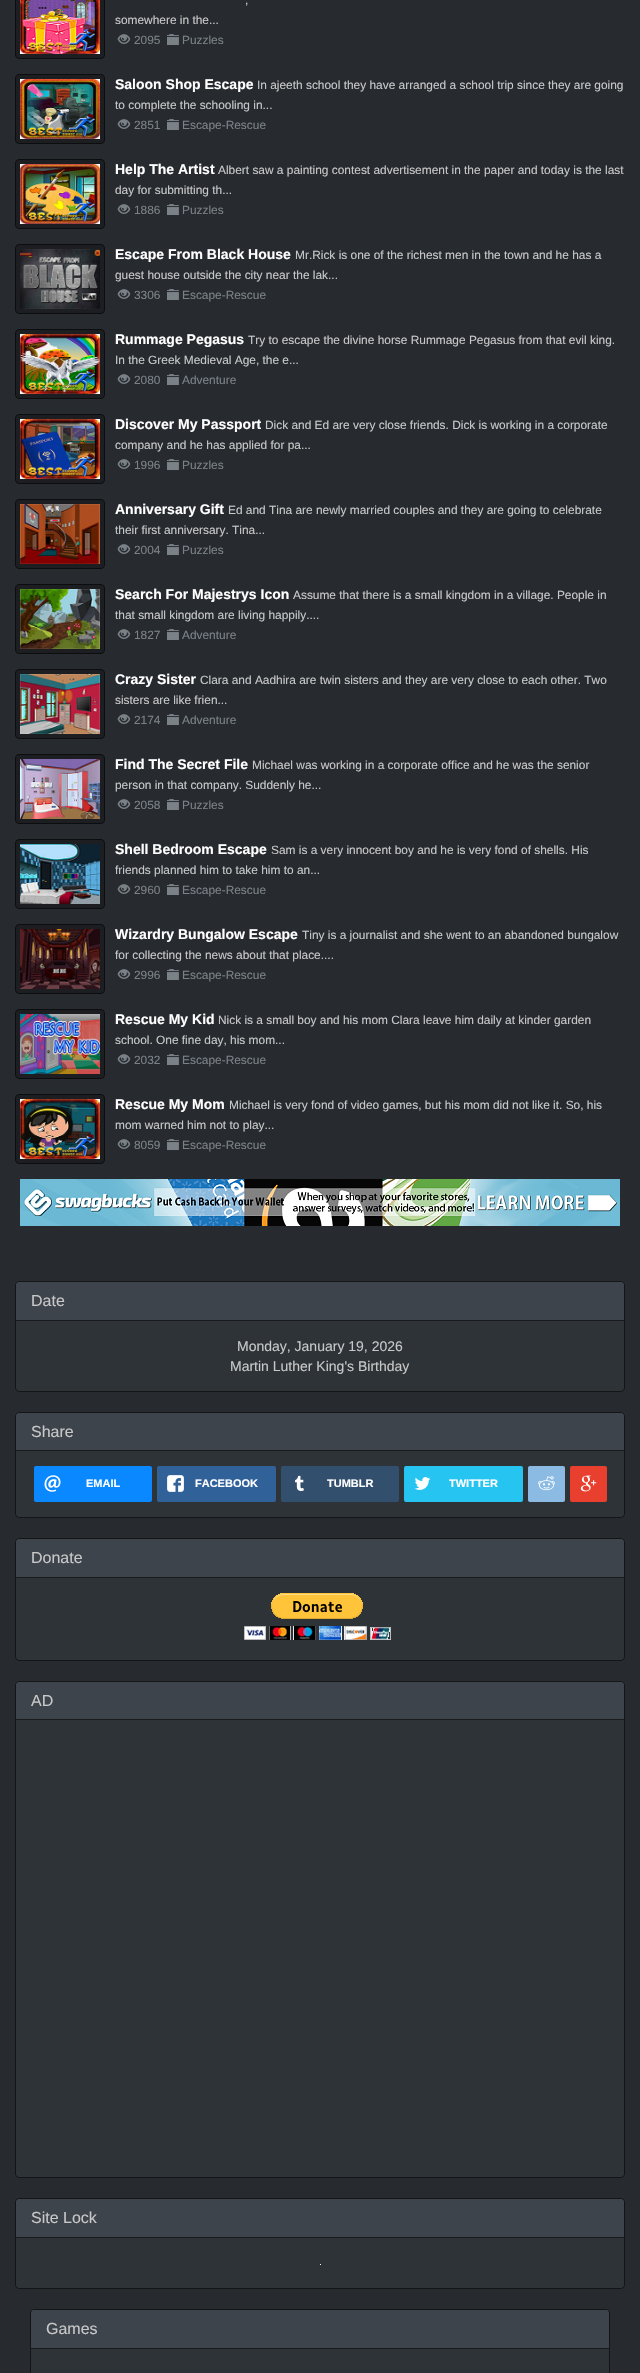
void draw(SkCanvas* canvas) {
    SkPaint paint;
    paint.setAntiAlias(true);
    canvas->clear(0xFF272B30);
    paint.setColor(0xFF1C1E22);
    canvas->drawRoundRect(SkRect::MakeXYWH(15.5f, -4.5f, 89, 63), 3.5f, 3.5f, paint);
    paint.setStyle(SkPaint::kStroke_Style);
    paint.setStrokeWidth(1);
    paint.setColor(0xFF0C0D0E);
    canvas->drawRoundRect(SkRect::MakeXYWH(15.5f, -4.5f, 89, 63), 3.5f, 3.5f, paint);
    canvas->drawImageRect(SkImages::DeferredFromEncodedData(SkData::MakeFromFileName("img1.png")), SkRect::MakeXYWH(20, 0, 80, 54), SkSamplingOptions());
    SkFont font1(fontMgr->matchFamilyStyle("Liberation Sans", SkFontStyle::Normal()), 11.9f);
    font1.setSubpixel(true);
    paint.setStyle(SkPaint::kFill_Style);
    paint.setColor(0xFFC8C8C8);
    canvas->drawString(",", 245, 4, font1, paint);
    canvas->drawString("somewhere in the...", 115, 24, font1, paint);
    canvas->drawImageRect(SkImages::DeferredFromEncodedData(SkData::MakeFromFileName("img2.png")), SkRect::MakeXYWH(117, 34, 14, 10), SkSamplingOptions());
    paint.setColor(0xFF7A8288);
    canvas->drawString("2095", 134, 44, font1, paint);
    canvas->drawImageRect(SkImages::DeferredFromEncodedData(SkData::MakeFromFileName("img3.png")), SkRect::MakeXYWH(167, 34, 12, 11), SkSamplingOptions());
    canvas->drawString("Puzzles", 182, 44, font1, paint);
    paint.setColor(0xFF1C1E22);
    canvas->drawRoundRect(SkRect::MakeXYWH(15.5f, 74.5f, 89, 69), 3.5f, 3.5f, paint);
    paint.setStyle(SkPaint::kStroke_Style);
    paint.setColor(0xFF0C0D0E);
    canvas->drawRoundRect(SkRect::MakeXYWH(15.5f, 74.5f, 89, 69), 3.5f, 3.5f, paint);
    canvas->drawImageRect(SkImages::DeferredFromEncodedData(SkData::MakeFromFileName("img4.png")), SkRect::MakeXYWH(20, 79, 80, 60), SkSamplingOptions());
    SkFont font2(fontMgr->matchFamilyStyle("Liberation Sans", SkFontStyle::Bold()), 14);
    font2.setSubpixel(true);
    paint.setStyle(SkPaint::kFill_Style);
    paint.setColor(0xFFFFFFFF);
    canvas->drawString("Saloon Shop Escape", 115, 89, font2, paint);
    paint.setColor(0xFFC8C8C8);
    canvas->drawString("In ajeeth school they have arranged a school trip since they are going", 257, 89, font1, paint);
    canvas->drawString("to complete the schooling in...", 115, 109, font1, paint);
    canvas->drawImageRect(SkImages::DeferredFromEncodedData(SkData::MakeFromFileName("img2.png")), SkRect::MakeXYWH(117, 119, 14, 10), SkSamplingOptions());
    paint.setColor(0xFF7A8288);
    canvas->drawString("2851", 134, 129, font1, paint);
    canvas->drawImageRect(SkImages::DeferredFromEncodedData(SkData::MakeFromFileName("img3.png")), SkRect::MakeXYWH(167, 119, 12, 11), SkSamplingOptions());
    canvas->drawString("Escape-Rescue", 182, 129, font1, paint);
    paint.setColor(0xFF1C1E22);
    canvas->drawRoundRect(SkRect::MakeXYWH(15.5f, 159.5f, 89, 69), 3.5f, 3.5f, paint);
    paint.setStyle(SkPaint::kStroke_Style);
    paint.setColor(0xFF0C0D0E);
    canvas->drawRoundRect(SkRect::MakeXYWH(15.5f, 159.5f, 89, 69), 3.5f, 3.5f, paint);
    canvas->drawImageRect(SkImages::DeferredFromEncodedData(SkData::MakeFromFileName("img5.png")), SkRect::MakeXYWH(20, 164, 80, 60), SkSamplingOptions());
    paint.setStyle(SkPaint::kFill_Style);
    paint.setColor(0xFFFFFFFF);
    canvas->drawString("Help The Artist", 115, 174, font2, paint);
    paint.setColor(0xFFC8C8C8);
    canvas->drawString("Albert saw a painting contest advertisement in the paper and today is the last", 218, 174, font1, paint);
    canvas->drawString("day for submitting th...", 115, 194, font1, paint);
    canvas->drawImageRect(SkImages::DeferredFromEncodedData(SkData::MakeFromFileName("img2.png")), SkRect::MakeXYWH(117, 204, 14, 10), SkSamplingOptions());
    paint.setColor(0xFF7A8288);
    canvas->drawString("1886", 134, 214, font1, paint);
    canvas->drawImageRect(SkImages::DeferredFromEncodedData(SkData::MakeFromFileName("img3.png")), SkRect::MakeXYWH(167, 204, 12, 11), SkSamplingOptions());
    canvas->drawString("Puzzles", 182, 214, font1, paint);
    paint.setColor(0xFF1C1E22);
    canvas->drawRoundRect(SkRect::MakeXYWH(15.5f, 244.5f, 89, 69), 3.5f, 3.5f, paint);
    paint.setStyle(SkPaint::kStroke_Style);
    paint.setColor(0xFF0C0D0E);
    canvas->drawRoundRect(SkRect::MakeXYWH(15.5f, 244.5f, 89, 69), 3.5f, 3.5f, paint);
    canvas->drawImageRect(SkImages::DeferredFromEncodedData(SkData::MakeFromFileName("img6.png")), SkRect::MakeXYWH(20, 249, 80, 60), SkSamplingOptions());
    paint.setStyle(SkPaint::kFill_Style);
    paint.setColor(0xFFFFFFFF);
    canvas->drawString("Escape From Black House", 115, 259, font2, paint);
    paint.setColor(0xFFC8C8C8);
    canvas->drawString("Mr.Rick is one of the richest men in the town and he has a", 295, 259, font1, paint);
    canvas->drawString("guest house outside the city near the lak...", 115, 279, font1, paint);
    canvas->drawImageRect(SkImages::DeferredFromEncodedData(SkData::MakeFromFileName("img2.png")), SkRect::MakeXYWH(117, 289, 14, 10), SkSamplingOptions());
    paint.setColor(0xFF7A8288);
    canvas->drawString("3306", 134, 299, font1, paint);
    canvas->drawImageRect(SkImages::DeferredFromEncodedData(SkData::MakeFromFileName("img3.png")), SkRect::MakeXYWH(167, 289, 12, 11), SkSamplingOptions());
    canvas->drawString("Escape-Rescue", 182, 299, font1, paint);
    paint.setColor(0xFF1C1E22);
    canvas->drawRoundRect(SkRect::MakeXYWH(15.5f, 329.5f, 89, 69), 3.5f, 3.5f, paint);
    paint.setStyle(SkPaint::kStroke_Style);
    paint.setColor(0xFF0C0D0E);
    canvas->drawRoundRect(SkRect::MakeXYWH(15.5f, 329.5f, 89, 69), 3.5f, 3.5f, paint);
    canvas->drawImageRect(SkImages::DeferredFromEncodedData(SkData::MakeFromFileName("img7.png")), SkRect::MakeXYWH(20, 334, 80, 60), SkSamplingOptions());
    paint.setStyle(SkPaint::kFill_Style);
    paint.setColor(0xFFFFFFFF);
    canvas->drawString("Rummage Pegasus", 115, 344, font2, paint);
    paint.setColor(0xFFC8C8C8);
    canvas->drawString("Try to escape the divine horse Rummage Pegasus from that evil king.", 248, 344, font1, paint);
    canvas->drawString("In the Greek Medieval Age, the e...", 115, 364, font1, paint);
    canvas->drawImageRect(SkImages::DeferredFromEncodedData(SkData::MakeFromFileName("img2.png")), SkRect::MakeXYWH(117, 374, 14, 10), SkSamplingOptions());
    paint.setColor(0xFF7A8288);
    canvas->drawString("2080", 134, 384, font1, paint);
    canvas->drawImageRect(SkImages::DeferredFromEncodedData(SkData::MakeFromFileName("img3.png")), SkRect::MakeXYWH(167, 374, 12, 11), SkSamplingOptions());
    canvas->drawString("Adventure", 182, 384, font1, paint);
    paint.setColor(0xFF1C1E22);
    canvas->drawRoundRect(SkRect::MakeXYWH(15.5f, 414.5f, 89, 69), 3.5f, 3.5f, paint);
    paint.setStyle(SkPaint::kStroke_Style);
    paint.setColor(0xFF0C0D0E);
    canvas->drawRoundRect(SkRect::MakeXYWH(15.5f, 414.5f, 89, 69), 3.5f, 3.5f, paint);
    canvas->drawImageRect(SkImages::DeferredFromEncodedData(SkData::MakeFromFileName("img8.png")), SkRect::MakeXYWH(20, 419, 80, 60), SkSamplingOptions());
    paint.setStyle(SkPaint::kFill_Style);
    paint.setColor(0xFFFFFFFF);
    canvas->drawString("Discover My Passport", 115, 429, font2, paint);
    paint.setColor(0xFFC8C8C8);
    canvas->drawString("Dick and Ed are very close friends. Dick is working in a corporate", 265, 429, font1, paint);
    canvas->drawString("company and he has applied for pa...", 115, 449, font1, paint);
    canvas->drawImageRect(SkImages::DeferredFromEncodedData(SkData::MakeFromFileName("img2.png")), SkRect::MakeXYWH(117, 459, 14, 10), SkSamplingOptions());
    paint.setColor(0xFF7A8288);
    canvas->drawString("1996", 134, 469, font1, paint);
    canvas->drawImageRect(SkImages::DeferredFromEncodedData(SkData::MakeFromFileName("img3.png")), SkRect::MakeXYWH(167, 459, 12, 11), SkSamplingOptions());
    canvas->drawString("Puzzles", 182, 469, font1, paint);
    paint.setColor(0xFF1C1E22);
    canvas->drawRoundRect(SkRect::MakeXYWH(15.5f, 499.5f, 89, 69), 3.5f, 3.5f, paint);
    paint.setStyle(SkPaint::kStroke_Style);
    paint.setColor(0xFF0C0D0E);
    canvas->drawRoundRect(SkRect::MakeXYWH(15.5f, 499.5f, 89, 69), 3.5f, 3.5f, paint);
    canvas->drawImageRect(SkImages::DeferredFromEncodedData(SkData::MakeFromFileName("img9.png")), SkRect::MakeXYWH(20, 504, 80, 60), SkSamplingOptions());
    paint.setStyle(SkPaint::kFill_Style);
    paint.setColor(0xFFFFFFFF);
    canvas->drawString("Anniversary Gift", 115, 514, font2, paint);
    paint.setColor(0xFFC8C8C8);
    canvas->drawString("Ed and Tina are newly married couples and they are going to celebrate", 228, 514, font1, paint);
    canvas->drawString("their first anniversary. Tina...", 115, 534, font1, paint);
    canvas->drawImageRect(SkImages::DeferredFromEncodedData(SkData::MakeFromFileName("img2.png")), SkRect::MakeXYWH(117, 544, 14, 10), SkSamplingOptions());
    paint.setColor(0xFF7A8288);
    canvas->drawString("2004", 134, 554, font1, paint);
    canvas->drawImageRect(SkImages::DeferredFromEncodedData(SkData::MakeFromFileName("img3.png")), SkRect::MakeXYWH(167, 544, 12, 11), SkSamplingOptions());
    canvas->drawString("Puzzles", 182, 554, font1, paint);
    paint.setColor(0xFF1C1E22);
    canvas->drawRoundRect(SkRect::MakeXYWH(15.5f, 584.5f, 89, 69), 3.5f, 3.5f, paint);
    paint.setStyle(SkPaint::kStroke_Style);
    paint.setColor(0xFF0C0D0E);
    canvas->drawRoundRect(SkRect::MakeXYWH(15.5f, 584.5f, 89, 69), 3.5f, 3.5f, paint);
    canvas->drawImageRect(SkImages::DeferredFromEncodedData(SkData::MakeFromFileName("img10.png")), SkRect::MakeXYWH(20, 589, 80, 60), SkSamplingOptions());
    paint.setStyle(SkPaint::kFill_Style);
    paint.setColor(0xFFFFFFFF);
    canvas->drawString("Search For Majestrys Icon", 115, 599, font2, paint);
    paint.setColor(0xFFC8C8C8);
    canvas->drawString("Assume that there is a small kingdom in a village. People in", 293, 599, font1, paint);
    canvas->drawString("that small kingdom are living happily....", 115, 619, font1, paint);
    canvas->drawImageRect(SkImages::DeferredFromEncodedData(SkData::MakeFromFileName("img2.png")), SkRect::MakeXYWH(117, 629, 14, 10), SkSamplingOptions());
    paint.setColor(0xFF7A8288);
    canvas->drawString("1827", 134, 639, font1, paint);
    canvas->drawImageRect(SkImages::DeferredFromEncodedData(SkData::MakeFromFileName("img3.png")), SkRect::MakeXYWH(167, 629, 12, 11), SkSamplingOptions());
    canvas->drawString("Adventure", 182, 639, font1, paint);
    paint.setColor(0xFF1C1E22);
    canvas->drawRoundRect(SkRect::MakeXYWH(15.5f, 669.5f, 89, 69), 3.5f, 3.5f, paint);
    paint.setStyle(SkPaint::kStroke_Style);
    paint.setColor(0xFF0C0D0E);
    canvas->drawRoundRect(SkRect::MakeXYWH(15.5f, 669.5f, 89, 69), 3.5f, 3.5f, paint);
    canvas->drawImageRect(SkImages::DeferredFromEncodedData(SkData::MakeFromFileName("img11.png")), SkRect::MakeXYWH(20, 674, 80, 60), SkSamplingOptions());
    paint.setStyle(SkPaint::kFill_Style);
    paint.setColor(0xFFFFFFFF);
    canvas->drawString("Crazy Sister", 115, 684, font2, paint);
    paint.setColor(0xFFC8C8C8);
    canvas->drawString("Clara and Aadhira are twin sisters and they are very close to each other. Two", 200, 684, font1, paint);
    canvas->drawString("sisters are like frien...", 115, 704, font1, paint);
    canvas->drawImageRect(SkImages::DeferredFromEncodedData(SkData::MakeFromFileName("img2.png")), SkRect::MakeXYWH(117, 714, 14, 10), SkSamplingOptions());
    paint.setColor(0xFF7A8288);
    canvas->drawString("2174", 134, 724, font1, paint);
    canvas->drawImageRect(SkImages::DeferredFromEncodedData(SkData::MakeFromFileName("img3.png")), SkRect::MakeXYWH(167, 714, 12, 11), SkSamplingOptions());
    canvas->drawString("Adventure", 182, 724, font1, paint);
    paint.setColor(0xFF1C1E22);
    canvas->drawRoundRect(SkRect::MakeXYWH(15.5f, 754.5f, 89, 69), 3.5f, 3.5f, paint);
    paint.setStyle(SkPaint::kStroke_Style);
    paint.setColor(0xFF0C0D0E);
    canvas->drawRoundRect(SkRect::MakeXYWH(15.5f, 754.5f, 89, 69), 3.5f, 3.5f, paint);
    canvas->drawImageRect(SkImages::DeferredFromEncodedData(SkData::MakeFromFileName("img12.png")), SkRect::MakeXYWH(20, 759, 80, 60), SkSamplingOptions());
    paint.setStyle(SkPaint::kFill_Style);
    paint.setColor(0xFFFFFFFF);
    canvas->drawString("Find The Secret File", 115, 769, font2, paint);
    paint.setColor(0xFFC8C8C8);
    canvas->drawString("Michael was working in a corporate office and he was the senior", 252, 769, font1, paint);
    canvas->drawString("person in that company. Suddenly he...", 115, 789, font1, paint);
    canvas->drawImageRect(SkImages::DeferredFromEncodedData(SkData::MakeFromFileName("img2.png")), SkRect::MakeXYWH(117, 799, 14, 10), SkSamplingOptions());
    paint.setColor(0xFF7A8288);
    canvas->drawString("2058", 134, 809, font1, paint);
    canvas->drawImageRect(SkImages::DeferredFromEncodedData(SkData::MakeFromFileName("img3.png")), SkRect::MakeXYWH(167, 799, 12, 11), SkSamplingOptions());
    canvas->drawString("Puzzles", 182, 809, font1, paint);
    paint.setColor(0xFF1C1E22);
    canvas->drawRoundRect(SkRect::MakeXYWH(15.5f, 839.5f, 89, 69), 3.5f, 3.5f, paint);
    paint.setStyle(SkPaint::kStroke_Style);
    paint.setColor(0xFF0C0D0E);
    canvas->drawRoundRect(SkRect::MakeXYWH(15.5f, 839.5f, 89, 69), 3.5f, 3.5f, paint);
    canvas->drawImageRect(SkImages::DeferredFromEncodedData(SkData::MakeFromFileName("img13.png")), SkRect::MakeXYWH(20, 844, 80, 60), SkSamplingOptions());
    paint.setStyle(SkPaint::kFill_Style);
    paint.setColor(0xFFFFFFFF);
    canvas->drawString("Shell Bedroom Escape", 115, 854, font2, paint);
    paint.setColor(0xFFC8C8C8);
    canvas->drawString("Sam is a very innocent boy and he is very fond of shells. His", 271, 854, font1, paint);
    canvas->drawString("friends planned him to take him to an...", 115, 874, font1, paint);
    canvas->drawImageRect(SkImages::DeferredFromEncodedData(SkData::MakeFromFileName("img2.png")), SkRect::MakeXYWH(117, 884, 14, 10), SkSamplingOptions());
    paint.setColor(0xFF7A8288);
    canvas->drawString("2960", 134, 894, font1, paint);
    canvas->drawImageRect(SkImages::DeferredFromEncodedData(SkData::MakeFromFileName("img3.png")), SkRect::MakeXYWH(167, 884, 12, 11), SkSamplingOptions());
    canvas->drawString("Escape-Rescue", 182, 894, font1, paint);
    paint.setColor(0xFF1C1E22);
    canvas->drawRoundRect(SkRect::MakeXYWH(15.5f, 924.5f, 89, 69), 3.5f, 3.5f, paint);
    paint.setStyle(SkPaint::kStroke_Style);
    paint.setColor(0xFF0C0D0E);
    canvas->drawRoundRect(SkRect::MakeXYWH(15.5f, 924.5f, 89, 69), 3.5f, 3.5f, paint);
    canvas->drawImageRect(SkImages::DeferredFromEncodedData(SkData::MakeFromFileName("img14.png")), SkRect::MakeXYWH(20, 929, 80, 60), SkSamplingOptions());
    paint.setStyle(SkPaint::kFill_Style);
    paint.setColor(0xFFFFFFFF);
    canvas->drawString("Wizardry Bungalow Escape", 115, 939, font2, paint);
    paint.setColor(0xFFC8C8C8);
    canvas->drawString("Tiny is a journalist and she went to an abandoned bungalow", 302, 939, font1, paint);
    canvas->drawString("for collecting the news about that place....", 115, 959, font1, paint);
    canvas->drawImageRect(SkImages::DeferredFromEncodedData(SkData::MakeFromFileName("img2.png")), SkRect::MakeXYWH(117, 969, 14, 10), SkSamplingOptions());
    paint.setColor(0xFF7A8288);
    canvas->drawString("2996", 134, 979, font1, paint);
    canvas->drawImageRect(SkImages::DeferredFromEncodedData(SkData::MakeFromFileName("img3.png")), SkRect::MakeXYWH(167, 969, 12, 11), SkSamplingOptions());
    canvas->drawString("Escape-Rescue", 182, 979, font1, paint);
    paint.setColor(0xFF1C1E22);
    canvas->drawRoundRect(SkRect::MakeXYWH(15.5f, 1009.5f, 89, 69), 3.5f, 3.5f, paint);
    paint.setStyle(SkPaint::kStroke_Style);
    paint.setColor(0xFF0C0D0E);
    canvas->drawRoundRect(SkRect::MakeXYWH(15.5f, 1009.5f, 89, 69), 3.5f, 3.5f, paint);
    canvas->drawImageRect(SkImages::DeferredFromEncodedData(SkData::MakeFromFileName("img15.png")), SkRect::MakeXYWH(20, 1014, 80, 60), SkSamplingOptions());
    paint.setStyle(SkPaint::kFill_Style);
    paint.setColor(0xFFFFFFFF);
    canvas->drawString("Rescue My Kid", 115, 1024, font2, paint);
    paint.setColor(0xFFC8C8C8);
    canvas->drawString("Nick is a small boy and his mom Clara leave him daily at kinder garden", 218, 1024, font1, paint);
    canvas->drawString("school. One fine day, his mom...", 115, 1044, font1, paint);
    canvas->drawImageRect(SkImages::DeferredFromEncodedData(SkData::MakeFromFileName("img2.png")), SkRect::MakeXYWH(117, 1054, 14, 10), SkSamplingOptions());
    paint.setColor(0xFF7A8288);
    canvas->drawString("2032", 134, 1064, font1, paint);
    canvas->drawImageRect(SkImages::DeferredFromEncodedData(SkData::MakeFromFileName("img3.png")), SkRect::MakeXYWH(167, 1054, 12, 11), SkSamplingOptions());
    canvas->drawString("Escape-Rescue", 182, 1064, font1, paint);
    paint.setColor(0xFF1C1E22);
    canvas->drawRoundRect(SkRect::MakeXYWH(15.5f, 1094.5f, 89, 69), 3.5f, 3.5f, paint);
    paint.setStyle(SkPaint::kStroke_Style);
    paint.setColor(0xFF0C0D0E);
    canvas->drawRoundRect(SkRect::MakeXYWH(15.5f, 1094.5f, 89, 69), 3.5f, 3.5f, paint);
    canvas->drawImageRect(SkImages::DeferredFromEncodedData(SkData::MakeFromFileName("img16.png")), SkRect::MakeXYWH(20, 1099, 80, 60), SkSamplingOptions());
    paint.setStyle(SkPaint::kFill_Style);
    paint.setColor(0xFFFFFFFF);
    canvas->drawString("Rescue My Mom", 115, 1109, font2, paint);
    paint.setColor(0xFFC8C8C8);
    canvas->drawString("Michael is very fond of video games, but his mom did not like it. So, his", 229, 1109, font1, paint);
    canvas->drawString("mom warned him not to play...", 115, 1129, font1, paint);
    canvas->drawImageRect(SkImages::DeferredFromEncodedData(SkData::MakeFromFileName("img2.png")), SkRect::MakeXYWH(117, 1139, 14, 10), SkSamplingOptions());
    paint.setColor(0xFF7A8288);
    canvas->drawString("8059", 134, 1149, font1, paint);
    canvas->drawImageRect(SkImages::DeferredFromEncodedData(SkData::MakeFromFileName("img3.png")), SkRect::MakeXYWH(167, 1139, 12, 11), SkSamplingOptions());
    canvas->drawString("Escape-Rescue", 182, 1149, font1, paint);
    canvas->drawImageRect(SkImages::DeferredFromEncodedData(SkData::MakeFromFileName("img17.png")), SkRect::MakeXYWH(20, 1179, 600, 47), SkSamplingOptions());
    paint.setColor(0xFF2E3338);
    canvas->drawRoundRect(SkRect::MakeXYWH(15, 1281, 610, 111), 4, 4, paint);
    paint.setStyle(SkPaint::kStroke_Style);
    paint.setColor(0x99000000);
    canvas->drawRoundRect(SkRect::MakeXYWH(15.5f, 1281.5f, 609, 110), 3.5f, 3.5f, paint);
    paint.setStyle(SkPaint::kFill_Style);
    paint.setColor(0xFF3E444C);
    canvas->drawPath(SkPathBuilder().moveTo(19, 1282).lineTo(621, 1282).cubicTo(622.5f, 1282, 624, 1283.5f, 624, 1285).lineTo(624, 1321).lineTo(16, 1321).lineTo(16, 1285).cubicTo(16, 1283.5f, 17.5f, 1282, 19, 1282).close().detach(), paint);
    paint.setColor(0xFF191B1E);
    canvas->drawRect(SkRect::MakeXYWH(16, 1320, 608, 1), paint);
    SkFont font3(fontMgr->matchFamilyStyle("Liberation Sans", SkFontStyle::Normal()), 16);
    font3.setSubpixel(true);
    paint.setColor(0xFFC8C8C8);
    canvas->drawString("Date", 31, 1306, font3, paint);
    SkFont font4(fontMgr->matchFamilyStyle("Liberation Sans", SkFontStyle::Normal()), 14);
    font4.setSubpixel(true);
    canvas->drawString("Monday, January 19, 2026", 237, 1351, font4, paint);
    canvas->drawString("Martin Luther King's Birthday", 230, 1371, font4, paint);
    paint.setColor(0xFF2E3338);
    canvas->drawRoundRect(SkRect::MakeXYWH(15, 1412, 610, 106), 4, 4, paint);
    paint.setStyle(SkPaint::kStroke_Style);
    paint.setColor(0x99000000);
    canvas->drawRoundRect(SkRect::MakeXYWH(15.5f, 1412.5f, 609, 105), 3.5f, 3.5f, paint);
    paint.setStyle(SkPaint::kFill_Style);
    paint.setColor(0xFF3E444C);
    canvas->drawPath(SkPathBuilder().moveTo(19, 1413).lineTo(621, 1413).cubicTo(622.5f, 1413, 624, 1414.5f, 624, 1416).lineTo(624, 1451).lineTo(16, 1451).lineTo(16, 1416).cubicTo(16, 1414.5f, 17.5f, 1413, 19, 1413).close().detach(), paint);
    paint.setColor(0xFF191B1E);
    canvas->drawRect(SkRect::MakeXYWH(16, 1450, 608, 1), paint);
    paint.setColor(0xFFC8C8C8);
    canvas->drawString("Share", 31, 1437, font3, paint);
    paint.setColor(0xFF0A88FF);
    canvas->drawRoundRect(SkRect::MakeXYWH(34, 1466, 118, 36), 2, 2, paint);
    canvas->drawImageRect(SkImages::DeferredFromEncodedData(SkData::MakeFromFileName("img18.png")), SkRect::MakeXYWH(44, 1475, 17, 17), SkSamplingOptions());
    SkFont font5(fontMgr->matchFamilyStyle("Liberation Sans", SkFontStyle::Bold()), 11);
    font5.setSubpixel(true);
    paint.setColor(0xFFFFFFFF);
    canvas->drawString("EMAIL", 86, 1487, font5, paint);
    paint.setColor(0xFF306199);
    canvas->drawRoundRect(SkRect::MakeXYWH(157, 1466, 119, 36), 2, 2, paint);
    canvas->drawImageRect(SkImages::DeferredFromEncodedData(SkData::MakeFromFileName("img19.png")), SkRect::MakeXYWH(167, 1475, 17, 17), SkSamplingOptions());
    paint.setColor(0xFFFFFFFF);
    canvas->drawString("FACEBOOK", 195, 1487, font5, paint);
    paint.setColor(0xFF32506D);
    canvas->drawRoundRect(SkRect::MakeXYWH(281, 1466, 118, 36), 2, 2, paint);
    canvas->drawImageRect(SkImages::DeferredFromEncodedData(SkData::MakeFromFileName("img20.png")), SkRect::MakeXYWH(295, 1475, 9, 16), SkSamplingOptions());
    paint.setColor(0xFFFFFFFF);
    canvas->drawString("TUMBLR", 327, 1487, font5, paint);
    paint.setColor(0xFF26C4F1);
    canvas->drawRoundRect(SkRect::MakeXYWH(404, 1466, 119, 36), 2, 2, paint);
    canvas->drawImageRect(SkImages::DeferredFromEncodedData(SkData::MakeFromFileName("img21.png")), SkRect::MakeXYWH(414, 1477, 17, 13), SkSamplingOptions());
    paint.setColor(0xFFFFFFFF);
    canvas->drawString("TWITTER", 449, 1487, font5, paint);
    paint.setColor(0xFF8BBBE3);
    canvas->drawRoundRect(SkRect::MakeXYWH(528, 1466, 37, 36), 2, 2, paint);
    canvas->drawImageRect(SkImages::DeferredFromEncodedData(SkData::MakeFromFileName("img22.png")), SkRect::MakeXYWH(538, 1476, 17, 15), SkSamplingOptions());
    paint.setColor(0xFFE93F2E);
    canvas->drawRoundRect(SkRect::MakeXYWH(570, 1466, 37, 36), 2, 2, paint);
    canvas->drawImageRect(SkImages::DeferredFromEncodedData(SkData::MakeFromFileName("img23.png")), SkRect::MakeXYWH(580, 1475, 17, 17), SkSamplingOptions());
    paint.setColor(0xFF2E3338);
    canvas->drawRoundRect(SkRect::MakeXYWH(15, 1538, 610, 123), 4, 4, paint);
    paint.setStyle(SkPaint::kStroke_Style);
    paint.setColor(0x99000000);
    canvas->drawRoundRect(SkRect::MakeXYWH(15.5f, 1538.5f, 609, 122), 3.5f, 3.5f, paint);
    paint.setStyle(SkPaint::kFill_Style);
    paint.setColor(0xFF3E444C);
    canvas->drawPath(SkPathBuilder().moveTo(19, 1539).lineTo(621, 1539).cubicTo(622.5f, 1539, 624, 1540.5f, 624, 1542).lineTo(624, 1578).lineTo(16, 1578).lineTo(16, 1542).cubicTo(16, 1540.5f, 17.5f, 1539, 19, 1539).close().detach(), paint);
    paint.setColor(0xFF191B1E);
    canvas->drawRect(SkRect::MakeXYWH(16, 1577, 608, 1), paint);
    paint.setColor(0xFFC8C8C8);
    canvas->drawString("Donate", 31, 1563, font3, paint);
    canvas->drawImageRect(SkImages::DeferredFromEncodedData(SkData::MakeFromFileName("img24.png")), SkRect::MakeXYWH(244, 1593, 147, 47), SkSamplingOptions());
    paint.setColor(0xFF2E3338);
    canvas->drawRoundRect(SkRect::MakeXYWH(15, 1681, 610, 497), 4, 4, paint);
    paint.setStyle(SkPaint::kStroke_Style);
    paint.setColor(0x99000000);
    canvas->drawRoundRect(SkRect::MakeXYWH(15.5f, 1681.5f, 609, 496), 3.5f, 3.5f, paint);
    paint.setStyle(SkPaint::kFill_Style);
    paint.setColor(0xFF3E444C);
    canvas->drawPath(SkPathBuilder().moveTo(19, 1682).lineTo(621, 1682).cubicTo(622.5f, 1682, 624, 1683.5f, 624, 1685).lineTo(624, 1720).lineTo(16, 1720).lineTo(16, 1685).cubicTo(16, 1683.5f, 17.5f, 1682, 19, 1682).close().detach(), paint);
    paint.setColor(0xFF191B1E);
    canvas->drawRect(SkRect::MakeXYWH(16, 1719, 608, 1), paint);
    paint.setColor(0xFFC8C8C8);
    canvas->drawString("AD", 31, 1706, font3, paint);
    paint.setColor(0xFF2E3338);
    canvas->drawRoundRect(SkRect::MakeXYWH(15, 2198, 610, 91), 4, 4, paint);
    paint.setStyle(SkPaint::kStroke_Style);
    paint.setColor(0x99000000);
    canvas->drawRoundRect(SkRect::MakeXYWH(15.5f, 2198.5f, 609, 90), 3.5f, 3.5f, paint);
    paint.setStyle(SkPaint::kFill_Style);
    paint.setColor(0xFF3E444C);
    canvas->drawPath(SkPathBuilder().moveTo(19, 2199).lineTo(621, 2199).cubicTo(622.5f, 2199, 624, 2200.5f, 624, 2202).lineTo(624, 2238).lineTo(16, 2238).lineTo(16, 2202).cubicTo(16, 2200.5f, 17.5f, 2199, 19, 2199).close().detach(), paint);
    paint.setColor(0xFF191B1E);
    canvas->drawRect(SkRect::MakeXYWH(16, 2237, 608, 1), paint);
    paint.setColor(0xFFC8C8C8);
    canvas->drawString("Site Lock", 31, 2223, font3, paint);
    paint.setColor(0xFFFFFFFF);
    canvas->drawRect(SkRect::MakeXYWH(320, 2264, 1, 1), paint);
    paint.setColor(0xFF2E3338);
    canvas->drawRoundRect(SkRect::MakeXYWH(30, 2309, 580, 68), 4, 4, paint);
    paint.setStyle(SkPaint::kStroke_Style);
    paint.setColor(0x99000000);
    canvas->drawRoundRect(SkRect::MakeXYWH(30.5f, 2309.5f, 579, 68), 3.5f, 3.5f, paint);
    paint.setStyle(SkPaint::kFill_Style);
    paint.setColor(0xFF3E444C);
    canvas->drawPath(SkPathBuilder().moveTo(34, 2310).lineTo(606, 2310).cubicTo(607.5f, 2310, 609, 2311.5f, 609, 2313).lineTo(609, 2349).lineTo(31, 2349).lineTo(31, 2313).cubicTo(31, 2311.5f, 32.5f, 2310, 34, 2310).close().detach(), paint);
    paint.setColor(0xFF191B1E);
    canvas->drawRect(SkRect::MakeXYWH(31, 2348, 578, 1), paint);
    paint.setColor(0xFFC8C8C8);
    canvas->drawString("Games", 46, 2334, font3, paint);
}
